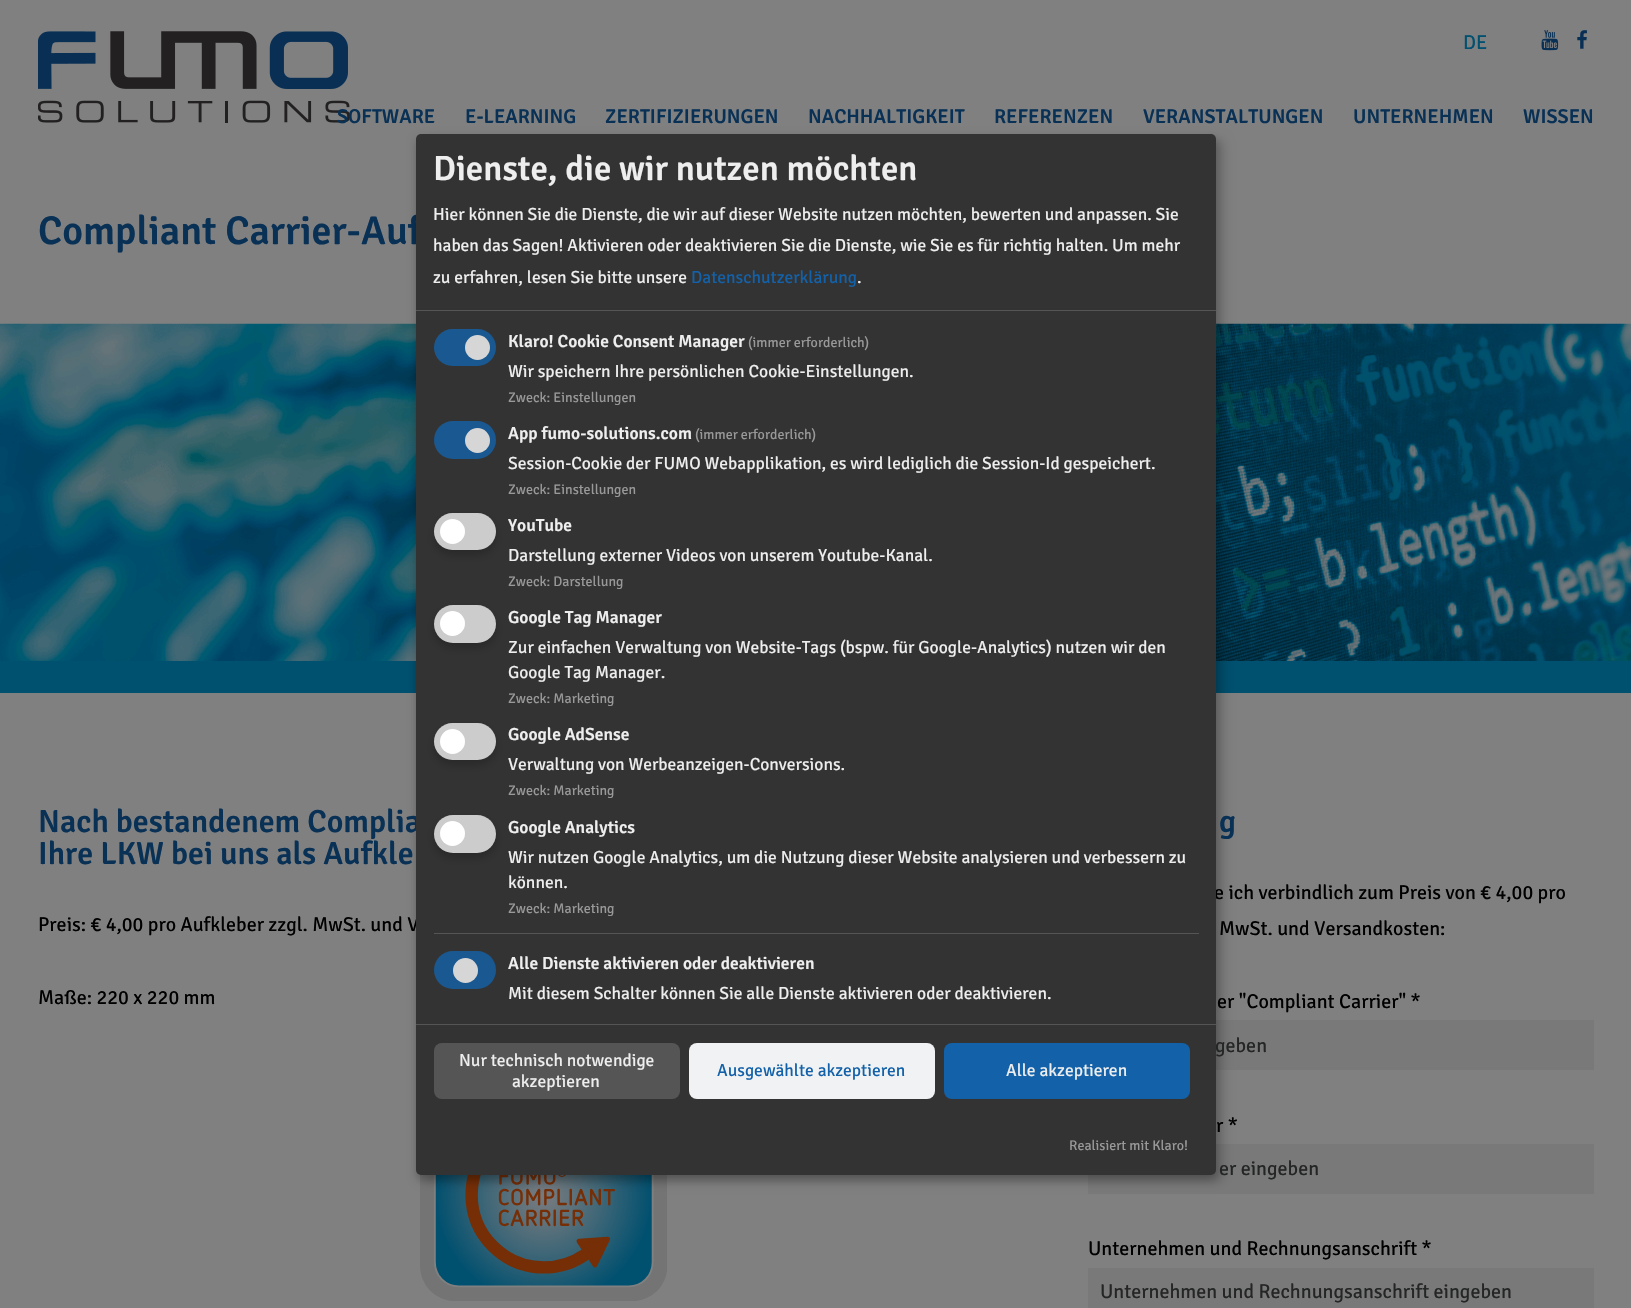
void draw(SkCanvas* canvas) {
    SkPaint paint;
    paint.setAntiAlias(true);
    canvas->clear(0xFF808080);
    canvas->drawImageRect(SkImages::DeferredFromEncodedData(SkData::MakeFromFileName("img1.png")), SkRect::MakeXYWH(38, 31, 312, 92), SkSamplingOptions());
    SkFont font1(fontMgr->matchFamilyStyle("Signika Negative", SkFontStyle::Normal()), 20);
    font1.setSubpixel(true);
    paint.setColor(0xFF00506F);
    canvas->drawString("DE", 1463, 49, font1, paint);
    canvas->drawImageRect(SkImages::DeferredFromEncodedData(SkData::MakeFromFileName("img2.png")), SkRect::MakeXYWH(1541, 30, 18, 21), SkSamplingOptions());
    canvas->drawImageRect(SkImages::DeferredFromEncodedData(SkData::MakeFromFileName("img3.png")), SkRect::MakeXYWH(1577, 30, 10, 19), SkSamplingOptions());
    SkFont font2(fontMgr->matchFamilyStyle("Signika Negative", SkFontStyle(600, SkFontStyle::kNormal_Width, SkFontStyle::kUpright_Slant)), 20);
    font2.setSubpixel(true);
    paint.setColor(0xFF093155);
    canvas->drawString("SOFTWARE", 337, 123, font2, paint);
    canvas->drawString("E-LEARNING", 465, 123, font2, paint);
    canvas->drawString("ZERTIFIZIERUNGEN", 605, 123, font2, paint);
    canvas->drawString("NACHHALTIGKEIT", 808, 123, font2, paint);
    canvas->drawString("REFERENZEN", 994, 123, font2, paint);
    canvas->drawString("VERANSTALTUNGEN", 1143, 123, font2, paint);
    canvas->drawString("UNTERNEHMEN", 1353, 123, font2, paint);
    canvas->drawString("WISSEN", 1523, 123, font2, paint);
    SkFont font3(fontMgr->matchFamilyStyle("Signika Negative", SkFontStyle(600, SkFontStyle::kNormal_Width, SkFontStyle::kUpright_Slant)), 40);
    font3.setSubpixel(true);
    canvas->drawString("Compliant Carrier-Auf", 38, 244, font3, paint);
    canvas->drawImageRect(SkImages::DeferredFromEncodedData(SkData::MakeFromFileName("img4.png")), SkRect::MakeXYWH(0, 323, 1631, 338), SkSamplingOptions());
    paint.setColor(0xFF00506F);
    canvas->drawRect(SkRect::MakeXYWH(0, 661, 1631, 32), paint);
    canvas->drawImageRect(SkImages::DeferredFromEncodedData(SkData::MakeFromFileName("img5.png")), SkRect::MakeXYWH(420, 1174, 247, 127), SkSamplingOptions());
    paint.setColor(0xFF79797A);
    canvas->drawRect(SkRect::MakeXYWH(1216, 1020, 378, 50), paint);
    canvas->drawRect(SkRect::MakeXYWH(1088, 1144, 506, 50), paint);
    paint.setColor(0x30000000);
    paint.setMaskFilter(SkMaskFilter::MakeBlur(kNormal_SkBlurStyle, 6));
    canvas->drawRoundRect(SkRect::MakeXYWH(423, 140, 800, 1041), 5, 5, paint);
    paint.setMaskFilter(nullptr);
    paint.setColor(0x33000000);
    paint.setMaskFilter(SkMaskFilter::MakeBlur(kNormal_SkBlurStyle, 4));
    canvas->drawRoundRect(SkRect::MakeXYWH(416, 139, 800, 1041), 5, 5, paint);
    paint.setMaskFilter(nullptr);
    SkFont font4(fontMgr->matchFamilyStyle("Signika Negative", SkFontStyle(600, SkFontStyle::kNormal_Width, SkFontStyle::kUpright_Slant)), 32);
    font4.setSubpixel(true);
    paint.setColor(0xFF093155);
    canvas->drawString("Nach bestandenem Complia", 38, 832, font4, paint);
    paint.setColor(0xFF000000);
    canvas->drawString("Preis: € 4,00 pro Aufkleber zzgl. MwSt. und V", 38, 931, font1, paint);
    canvas->drawString("e ich verbindlich zum Preis von € 4,00 pro", 1214, 899, font1, paint);
    paint.setColor(0xFF242525);
    canvas->drawString("geben", 1215, 1052, font1, paint);
    paint.setColor(0xFF333333);
    canvas->drawRoundRect(SkRect::MakeXYWH(416, 134, 800, 1041), 5, 5, paint);
    paint.setColor(0xFF555555);
    canvas->drawRect(SkRect::MakeXYWH(416, 310, 800, 1), paint);
    SkFont font5(fontMgr->matchFamilyStyle("Signika Negative", SkFontStyle(600, SkFontStyle::kNormal_Width, SkFontStyle::kUpright_Slant)), 35);
    font5.setSubpixel(true);
    paint.setColor(0xFFEEEEEE);
    canvas->drawString("Dienste, die wir nutzen möchten", 433, 180, font5, paint);
    SkFont font6(fontMgr->matchFamilyStyle("Signika Negative", SkFontStyle::Normal()), 17.5f);
    font6.setSubpixel(true);
    canvas->drawString("Hier können Sie die Dienste, die wir auf dieser Website nutzen möchten, bewerten und anpassen. Sie", 433, 220, font6, paint);
    canvas->drawString("haben das Sagen! Aktivieren oder deaktivieren Sie die Dienste, wie Sie es für richtig halten. Um mehr", 433, 251, font6, paint);
    canvas->drawString("zu erfahren, lesen Sie bitte unsere", 433, 283, font6, paint);
    paint.setColor(0xFF1261A9);
    canvas->drawString("Datenschutzerklärung", 691, 283, font6, paint);
    paint.setColor(0xFFEEEEEE);
    canvas->drawString(".", 857, 283, font6, paint);
    paint.setColor(0xFF195891);
    canvas->drawRoundRect(SkRect::MakeXYWH(434, 329, 62, 37), 18.5f, 18.5f, paint);
    paint.setColor(0xFFD6D6D6);
    canvas->drawCircle(477.5f, 347.5f, 12.5f, paint);
    SkFont font7(fontMgr->matchFamilyStyle("Signika Negative", SkFontStyle(600, SkFontStyle::kNormal_Width, SkFontStyle::kUpright_Slant)), 17.5f);
    font7.setSubpixel(true);
    paint.setColor(0xFFEEEEEE);
    canvas->drawString("Klaro! Cookie Consent Manager", 508, 347, font7, paint);
    SkFont font8(fontMgr->matchFamilyStyle("Signika Negative", SkFontStyle::Normal()), 14);
    font8.setSubpixel(true);
    paint.setColor(0xFF999999);
    canvas->drawString("(immer erforderlich)", 748, 347, font8, paint);
    paint.setColor(0xFFEEEEEE);
    canvas->drawString("Wir speichern Ihre persönlichen Cookie-Einstellungen.", 508, 377, font6, paint);
    paint.setColor(0xFF999999);
    canvas->drawString("Zweck: Einstellungen", 508, 402, font8, paint);
    paint.setColor(0xFF195891);
    canvas->drawRoundRect(SkRect::MakeXYWH(434, 421, 62, 38), 19, 19, paint);
    paint.setColor(0xFFD6D6D6);
    canvas->drawCircle(477.5f, 440.5f, 12.5f, paint);
    paint.setColor(0xFFEEEEEE);
    canvas->drawString("App fumo-solutions.com", 508, 439, font7, paint);
    paint.setColor(0xFF999999);
    canvas->drawString("(immer erforderlich)", 695, 439, font8, paint);
    paint.setColor(0xFFEEEEEE);
    canvas->drawString("Session-Cookie der FUMO Webapplikation, es wird lediglich die Session-Id gespeichert.", 508, 469, font6, paint);
    paint.setColor(0xFF999999);
    canvas->drawString("Zweck: Einstellungen", 508, 494, font8, paint);
    paint.setColor(0x33000000);
    paint.setMaskFilter(SkMaskFilter::MakeBlur(kNormal_SkBlurStyle, 4));
    canvas->drawRoundRect(SkRect::MakeXYWH(434, 518, 62, 37), 18.5f, 18.5f, paint);
    paint.setMaskFilter(nullptr);
    paint.setColor(0xFFCCCCCC);
    canvas->drawRoundRect(SkRect::MakeXYWH(434, 513, 62, 37), 18.5f, 18.5f, paint);
    paint.setColor(0xFFFFFFFF);
    canvas->drawCircle(452.5f, 531.5f, 12.5f, paint);
    paint.setColor(0xFFEEEEEE);
    canvas->drawString("YouTube", 508, 531, font7, paint);
    canvas->drawString("Darstellung externer Videos von unserem Youtube-Kanal.", 508, 561, font6, paint);
    paint.setColor(0xFF999999);
    canvas->drawString("Zweck: Darstellung", 508, 586, font8, paint);
    paint.setColor(0x33000000);
    paint.setMaskFilter(SkMaskFilter::MakeBlur(kNormal_SkBlurStyle, 4));
    canvas->drawRoundRect(SkRect::MakeXYWH(434, 610, 62, 38), 19, 19, paint);
    paint.setMaskFilter(nullptr);
    paint.setColor(0xFFCCCCCC);
    canvas->drawRoundRect(SkRect::MakeXYWH(434, 605, 62, 38), 19, 19, paint);
    paint.setColor(0xFFFFFFFF);
    canvas->drawCircle(452.5f, 623.5f, 12.5f, paint);
    paint.setColor(0xFFEEEEEE);
    canvas->drawString("Google Tag Manager", 508, 623, font7, paint);
    canvas->drawString("Zur einfachen Verwaltung von Website-Tags (bspw. für Google-Analytics) nutzen wir den", 508, 653, font6, paint);
    canvas->drawString("Google Tag Manager.", 508, 678, font6, paint);
    paint.setColor(0xFF999999);
    canvas->drawString("Zweck: Marketing", 508, 703, font8, paint);
    paint.setColor(0x33000000);
    paint.setMaskFilter(SkMaskFilter::MakeBlur(kNormal_SkBlurStyle, 4));
    canvas->drawRoundRect(SkRect::MakeXYWH(434, 728, 62, 37), 18.5f, 18.5f, paint);
    paint.setMaskFilter(nullptr);
    paint.setColor(0xFFCCCCCC);
    canvas->drawRoundRect(SkRect::MakeXYWH(434, 723, 62, 37), 18.5f, 18.5f, paint);
    paint.setColor(0xFFFFFFFF);
    canvas->drawCircle(452.5f, 741.5f, 12.5f, paint);
    paint.setColor(0xFFEEEEEE);
    canvas->drawString("Google AdSense", 508, 740, font7, paint);
    canvas->drawString("Verwaltung von Werbeanzeigen-Conversions.", 508, 770, font6, paint);
    paint.setColor(0xFF999999);
    canvas->drawString("Zweck: Marketing", 508, 795, font8, paint);
    paint.setColor(0x33000000);
    paint.setMaskFilter(SkMaskFilter::MakeBlur(kNormal_SkBlurStyle, 4));
    canvas->drawRoundRect(SkRect::MakeXYWH(434, 820, 62, 38), 19, 19, paint);
    paint.setMaskFilter(nullptr);
    paint.setColor(0xFFCCCCCC);
    canvas->drawRoundRect(SkRect::MakeXYWH(434, 815, 62, 38), 19, 19, paint);
    paint.setColor(0xFFFFFFFF);
    canvas->drawCircle(452.5f, 833.5f, 12.5f, paint);
    paint.setColor(0xFFEEEEEE);
    canvas->drawString("Google Analytics", 508, 833, font7, paint);
    canvas->drawString("Wir nutzen Google Analytics, um die Nutzung dieser Website analysieren und verbessern zu", 508, 863, font6, paint);
    canvas->drawString("können.", 508, 888, font6, paint);
    paint.setColor(0xFF999999);
    canvas->drawString("Zweck: Marketing", 508, 913, font8, paint);
    paint.setColor(0xFF555555);
    canvas->drawRect(SkRect::MakeXYWH(434, 933, 765, 1), paint);
    paint.setColor(0xFF195891);
    canvas->drawRoundRect(SkRect::MakeXYWH(434, 951, 62, 38), 19, 19, paint);
    paint.setColor(0xFFD6D6D6);
    canvas->drawCircle(465.5f, 970.5f, 12.5f, paint);
    paint.setColor(0xFFEEEEEE);
    canvas->drawString("Alle Dienste aktivieren oder deaktivieren", 508, 969, font7, paint);
    canvas->drawString("Mit diesem Schalter können Sie alle Dienste aktivieren oder deaktivieren.", 508, 999, font6, paint);
    paint.setColor(0xFF555555);
    canvas->drawRect(SkRect::MakeXYWH(416, 1024, 800, 1), paint);
    canvas->drawRoundRect(SkRect::MakeXYWH(434, 1043, 246, 56), 8, 8, paint);
    paint.setColor(0xFFEEEEEE);
    canvas->drawString("Nur technisch notwendige", 459, 1066, font6, paint);
    canvas->drawString("akzeptieren", 512, 1087, font6, paint);
    paint.setColor(0xFFF1F2F3);
    canvas->drawRoundRect(SkRect::MakeXYWH(689, 1043, 246, 56), 8, 8, paint);
    paint.setColor(0xFF1261A9);
    canvas->drawString("Ausgewählte akzeptieren", 717, 1076, font6, paint);
    canvas->drawRoundRect(SkRect::MakeXYWH(944, 1043, 246, 56), 8, 8, paint);
    paint.setColor(0xFFEEEEEE);
    canvas->drawString("Alle akzeptieren", 1006, 1076, font6, paint);
    paint.setColor(0xFF999999);
    canvas->drawString("Realisiert mit Klaro!", 1069, 1150, font8, paint);
    paint.setColor(0xFF093155);
    canvas->drawString("Ihre LKW bei uns als Aufkle", 38, 864, font4, paint);
    paint.setColor(0xFF000000);
    canvas->drawString("Maße: 220 x 220 mm", 38, 1004, font1, paint);
    paint.setColor(0xFF093155);
    canvas->drawString("g", 1219, 832, font4, paint);
    paint.setColor(0xFF000000);
    canvas->drawString("MwSt. und Versandkosten:", 1219, 935, font1, paint);
    canvas->drawString("er \"Compliant Carrier\" *", 1217, 1008, font1, paint);
    canvas->drawString("r *", 1216, 1132, font1, paint);
    paint.setColor(0xFF242525);
    canvas->drawString("er eingeben", 1219, 1175, font1, paint);
    paint.setColor(0xFF000000);
    canvas->drawString("Unternehmen und Rechnungsanschrift *", 1088, 1255, font1, paint);
    paint.setColor(0xFF79797A);
    canvas->drawRect(SkRect::MakeXYWH(1088, 1268, 506, 40), paint);
    paint.setColor(0xFF242525);
    canvas->drawString("Unternehmen und Rechnungsanschrift eingeben", 1100, 1298, font1, paint);
}
